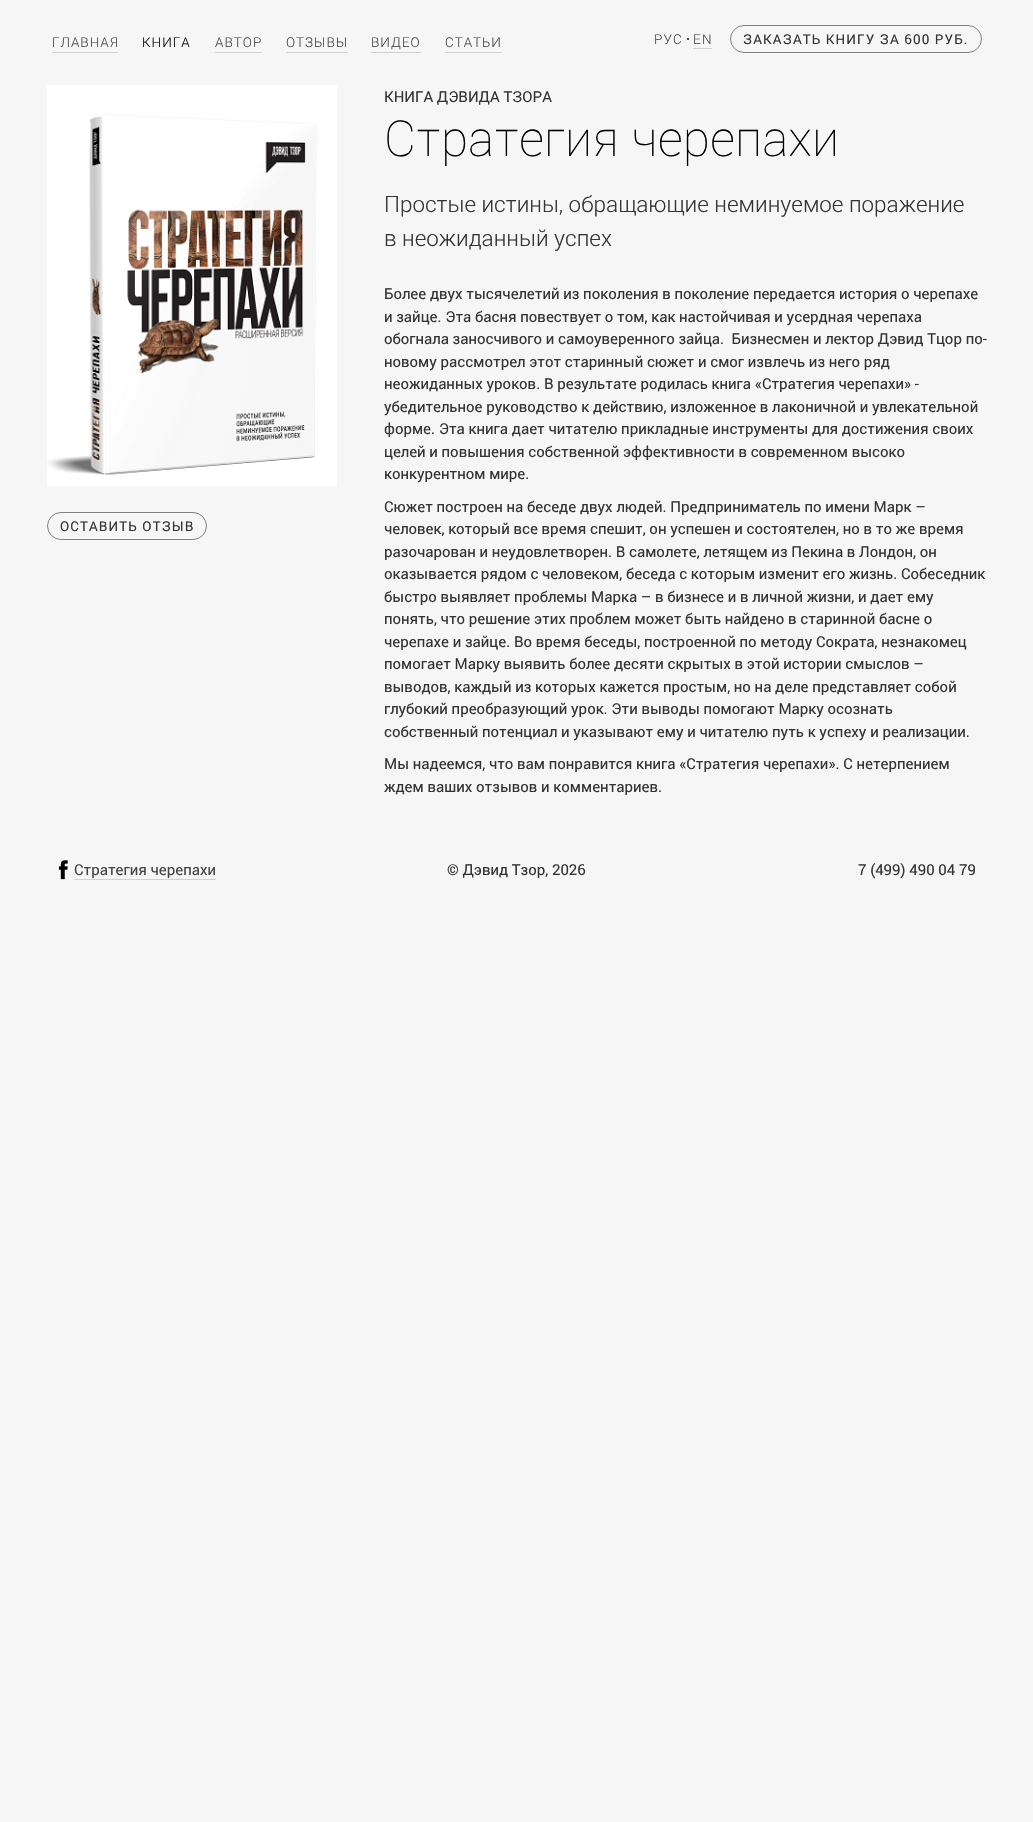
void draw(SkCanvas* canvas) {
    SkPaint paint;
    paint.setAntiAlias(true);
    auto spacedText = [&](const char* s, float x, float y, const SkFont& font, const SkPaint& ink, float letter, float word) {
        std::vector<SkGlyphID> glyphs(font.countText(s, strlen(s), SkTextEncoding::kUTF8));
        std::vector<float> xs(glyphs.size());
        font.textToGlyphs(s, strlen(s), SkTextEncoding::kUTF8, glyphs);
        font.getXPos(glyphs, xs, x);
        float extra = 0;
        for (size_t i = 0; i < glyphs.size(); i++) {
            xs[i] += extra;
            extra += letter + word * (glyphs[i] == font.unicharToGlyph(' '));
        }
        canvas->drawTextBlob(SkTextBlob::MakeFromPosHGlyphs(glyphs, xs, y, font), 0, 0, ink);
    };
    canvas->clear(0xFFF6F6F6);
    paint.setColor(0xFFD0D0D0);
    canvas->drawRect(SkRect::MakeXYWH(52, 52, 66, 1), paint);
    SkFont font1(fontMgr->matchFamilyStyle("Roboto", SkFontStyle(300, SkFontStyle::kNormal_Width, SkFontStyle::kUpright_Slant)), 13.5f);
    font1.setSubpixel(true);
    paint.setColor(0xFF444444);
    spacedText("ГЛАВНАЯ", 52, 47, font1, paint, 1, 0);
    paint.setColor(0xFF000000);
    spacedText("КНИГА", 142, 47, font1, paint, 1, 0);
    paint.setColor(0xFFD0D0D0);
    canvas->drawRect(SkRect::MakeXYWH(215, 52, 47, 1), paint);
    paint.setColor(0xFF444444);
    spacedText("АВТОР", 215, 47, font1, paint, 1, 0);
    paint.setColor(0xFFD0D0D0);
    canvas->drawRect(SkRect::MakeXYWH(286, 52, 62, 1), paint);
    paint.setColor(0xFF444444);
    spacedText("ОТЗЫВЫ", 286, 47, font1, paint, 1, 0);
    paint.setColor(0xFFD0D0D0);
    canvas->drawRect(SkRect::MakeXYWH(371, 52, 50, 1), paint);
    paint.setColor(0xFF444444);
    spacedText("ВИДЕО", 371, 47, font1, paint, 1, 0);
    paint.setColor(0xFFD0D0D0);
    canvas->drawRect(SkRect::MakeXYWH(445, 52, 57, 1), paint);
    paint.setColor(0xFF444444);
    spacedText("СТАТЬИ", 445, 47, font1, paint, 1, 0);
    spacedText("РУС", 654, 44, font1, paint, 1.1f, 0);
    canvas->drawRect(SkRect::MakeXYWH(687, 38, 2, 2), paint);
    spacedText("EN", 693, 44, font1, paint, 1.1f, 0);
    paint.setColor(0xFFD0D0D0);
    canvas->drawRect(SkRect::MakeXYWH(693, 48, 19, 1), paint);
    paint.setStyle(SkPaint::kStroke_Style);
    paint.setStrokeWidth(1);
    paint.setColor(0xFF808080);
    canvas->drawRoundRect(SkRect::MakeXYWH(730.5f, 25.5f, 251, 27), 13.5f, 13.5f, paint);
    SkFont font2(fontMgr->matchFamilyStyle("Roboto", SkFontStyle::Normal()), 13.5f);
    font2.setSubpixel(true);
    paint.setStyle(SkPaint::kFill_Style);
    paint.setColor(0xFF333333);
    spacedText("ЗАКАЗАТЬ КНИГУ ЗА 600 РУБ.", 743, 44, font2, paint, 1.1f, 0);
    canvas->drawImageRect(SkImages::DeferredFromEncodedData(SkData::MakeFromFileName("img1.png")), SkRect::MakeXYWH(47, 85, 290, 401), SkSamplingOptions());
    paint.setStyle(SkPaint::kStroke_Style);
    paint.setColor(0xFF808080);
    canvas->drawRoundRect(SkRect::MakeXYWH(47.5f, 512.5f, 159, 27), 13.5f, 13.5f, paint);
    paint.setStyle(SkPaint::kFill_Style);
    paint.setColor(0xFF333333);
    spacedText("ОСТАВИТЬ ОТЗЫВ", 60, 531, font2, paint, 1.1f, 0);
    SkFont font3(fontMgr->matchFamilyStyle("Roboto", SkFontStyle::Normal()), 15);
    font3.setSubpixel(true);
    canvas->drawString("КНИГА ДЭВИДА ТЗОРА", 384, 102, font3, paint);
    SkFont font4(fontMgr->matchFamilyStyle("Roboto", SkFontStyle(100, SkFontStyle::kNormal_Width, SkFontStyle::kUpright_Slant)), 49.5f);
    font4.setSubpixel(true);
    paint.setColor(0xFF000000);
    canvas->drawString("Стратегия черепахи", 384, 156, font4, paint);
    SkFont font5(fontMgr->matchFamilyStyle("Roboto", SkFontStyle(300, SkFontStyle::kNormal_Width, SkFontStyle::kUpright_Slant)), 22.5f);
    font5.setSubpixel(true);
    paint.setColor(0xFF333333);
    canvas->drawString("Простые истины, обращающие неминуемое поражение", 384, 212, font5, paint);
    canvas->drawString("в неожиданный успех", 384, 246, font5, paint);
    canvas->drawString("Более двух тысячелетий из поколения в поколение передается история о черепахе", 384, 299, font3, paint);
    canvas->drawString("и зайце. Эта басня повествует о том, как настойчивая и усердная черепаха", 384, 322, font3, paint);
    canvas->drawString("обогнала заносчивого и самоуверенного зайца.  Бизнесмен и лектор Дэвид Тцор по-", 384, 344, font3, paint);
    canvas->drawString("новому рассмотрел этот старинный сюжет и смог извлечь из него ряд", 384, 367, font3, paint);
    canvas->drawString("неожиданных уроков. В результате родилась книга «Стратегия черепахи» -", 384, 389, font3, paint);
    canvas->drawString("убедительное руководство к действию, изложенное в лаконичной и увлекательной", 384, 412, font3, paint);
    canvas->drawString("форме. Эта книга дает читателю прикладные инструменты для достижения своих", 384, 434, font3, paint);
    canvas->drawString("целей и повышения собственной эффективности в современном высоко", 384, 457, font3, paint);
    canvas->drawString("конкурентном мире.", 384, 479, font3, paint);
    canvas->drawString("Сюжет построен на беседе двух людей. Предприниматель по имени Марк –", 384, 512, font3, paint);
    canvas->drawString("человек, который все время спешит, он успешен и состоятелен, но в то же время", 384, 534, font3, paint);
    canvas->drawString("разочарован и неудовлетворен. В самолете, летящем из Пекина в Лондон, он", 384, 557, font3, paint);
    canvas->drawString("оказывается рядом с человеком, беседа с которым изменит его жизнь. Собеседник", 384, 579, font3, paint);
    canvas->drawString("быстро выявляет проблемы Марка – в бизнесе и в личной жизни, и дает ему", 384, 602, font3, paint);
    canvas->drawString("понять, что решение этих проблем может быть найдено в старинной басне о", 384, 624, font3, paint);
    canvas->drawString("черепахе и зайце. Во время беседы, построенной по методу Сократа, незнакомец", 384, 647, font3, paint);
    canvas->drawString("помогает Марку выявить более десяти скрытых в этой истории смыслов –", 384, 669, font3, paint);
    canvas->drawString("выводов, каждый из которых кажется простым, но на деле представляет собой", 384, 692, font3, paint);
    canvas->drawString("глубокий преобразующий урок. Эти выводы помогают Марку осознать", 384, 714, font3, paint);
    canvas->drawString("собственный потенциал и указывают ему и читателю путь к успеху и реализации.", 384, 737, font3, paint);
    canvas->drawString("Мы надеемся, что вам понравится книга «Стратегия черепахи». С нетерпением", 384, 769, font3, paint);
    canvas->drawString("ждем ваших отзывов и комментариев.", 384, 792, font3, paint);
    canvas->drawImageRect(SkImages::DeferredFromEncodedData(SkData::MakeFromFileName("img2.png")), SkRect::MakeXYWH(58, 860, 10, 20), SkSamplingOptions());
    paint.setColor(0xFF444444);
    canvas->drawString("Стратегия черепахи", 74, 875, font3, paint);
    paint.setColor(0xFFD0D0D0);
    canvas->drawRect(SkRect::MakeXYWH(74, 879, 142, 1), paint);
    paint.setColor(0xFF333333);
    canvas->drawString("© Дэвид Тзор, 2026", 447, 875, font3, paint);
    canvas->drawString("7 (499) 490 04 79", 858, 875, font3, paint);
}
